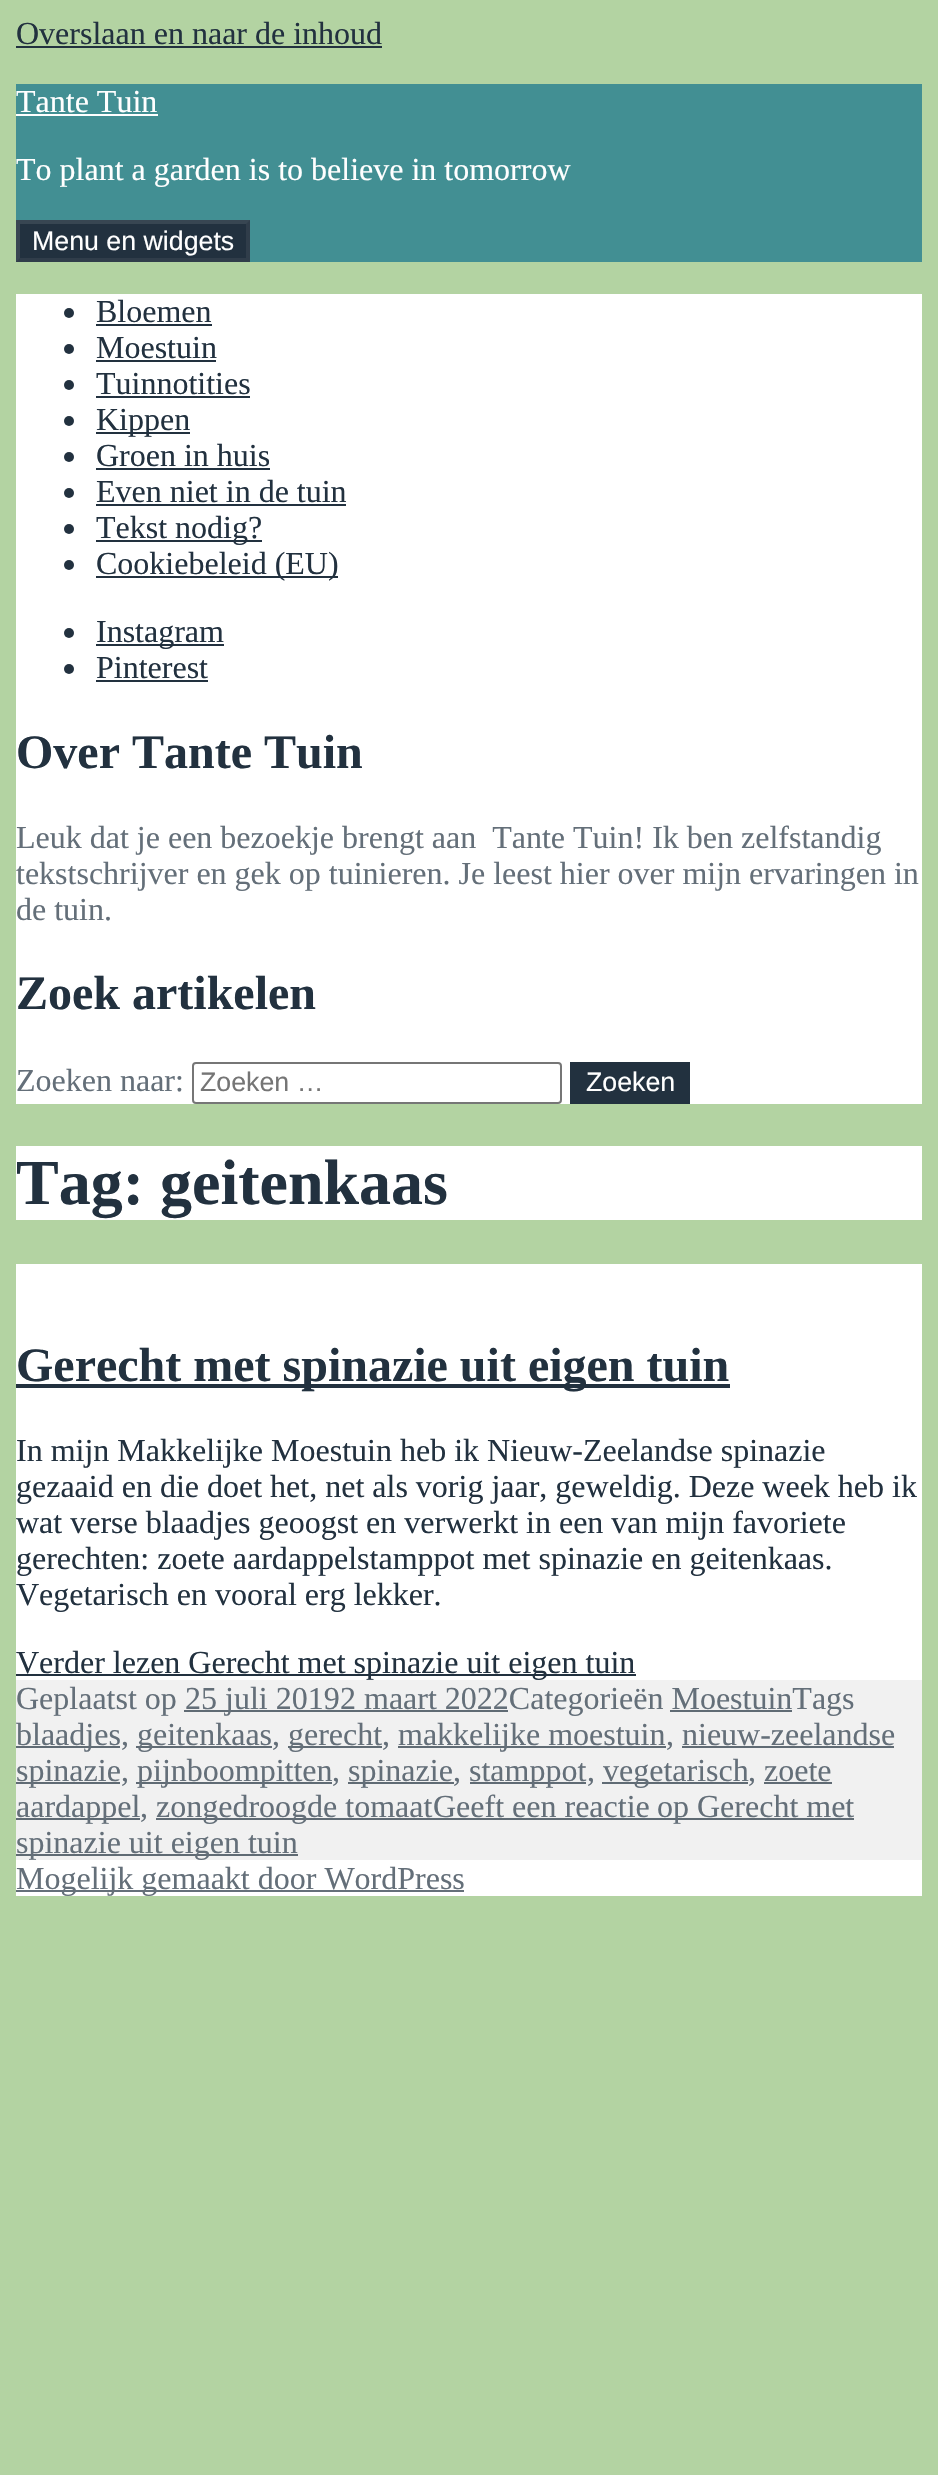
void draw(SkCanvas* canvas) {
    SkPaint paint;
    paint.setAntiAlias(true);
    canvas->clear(0xFFB3D3A2);
    SkFont font1(fontMgr->matchFamilyStyle("Liberation Serif", SkFontStyle::Normal()), 32);
    font1.setSubpixel(true);
    paint.setColor(0xFF22313F);
    canvas->drawString("Overslaan en naar de inhoud", 16, 44, font1, paint);
    canvas->drawRect(SkRect::MakeXYWH(16, 46, 366, 2), paint);
    paint.setColor(0xFF428F93);
    canvas->drawRect(SkRect::MakeXYWH(16, 84, 906, 178), paint);
    paint.setColor(0xFFFFFFFF);
    canvas->drawString("Tante Tuin", 16, 112, font1, paint);
    canvas->drawRect(SkRect::MakeXYWH(16, 114, 142, 2), paint);
    canvas->drawString("To plant a garden is to believe in tomorrow", 16, 180, font1, paint);
    paint.setColor(0xFF22313F);
    canvas->drawRect(SkRect::MakeXYWH(16, 220, 234, 42), paint);
    paint.setColor(0xFF384652);
    canvas->drawPath(SkPathBuilder().moveTo(16, 220).lineTo(250, 220).lineTo(246, 224).lineTo(20, 224).close().detach(), paint);
    paint.setColor(0x1AAAAAAA);
    canvas->drawPath(SkPathBuilder().moveTo(250, 220).lineTo(250, 262).lineTo(246, 258).lineTo(246, 224).close().detach(), paint);
    canvas->drawPath(SkPathBuilder().moveTo(250, 262).lineTo(16, 262).lineTo(20, 258).lineTo(246, 258).close().detach(), paint);
    paint.setColor(0x1AFFFFFF);
    canvas->drawPath(SkPathBuilder().moveTo(16, 262).lineTo(16, 220).lineTo(20, 224).lineTo(20, 258).close().detach(), paint);
    SkFont font2(fontMgr->matchFamilyStyle("Liberation Sans", SkFontStyle::Normal()), 26.75f);
    font2.setSubpixel(true);
    paint.setColor(0xFFFFFFFF);
    canvas->drawString("Menu en widgets", 32, 250, font2, paint);
    canvas->drawRect(SkRect::MakeXYWH(16, 294, 906, 810), paint);
    paint.setColor(0xFF22313F);
    canvas->drawCircle(69, 313, 5, paint);
    canvas->drawString("Bloemen", 96, 322, font1, paint);
    canvas->drawRect(SkRect::MakeXYWH(96, 324, 116, 2), paint);
    canvas->drawCircle(69, 349, 5, paint);
    canvas->drawString("Moestuin", 96, 358, font1, paint);
    canvas->drawRect(SkRect::MakeXYWH(96, 360, 120, 2), paint);
    canvas->drawCircle(69, 385, 5, paint);
    canvas->drawString("Tuinnotities", 96, 394, font1, paint);
    canvas->drawRect(SkRect::MakeXYWH(96, 396, 154, 2), paint);
    canvas->drawCircle(69, 421, 5, paint);
    canvas->drawRect(SkRect::MakeXYWH(96, 432, 94, 2), paint);
    canvas->drawString("Kippen", 96, 430, font1, paint);
    canvas->drawCircle(69, 457, 5, paint);
    canvas->drawString("Groen in huis", 96, 466, font1, paint);
    canvas->drawRect(SkRect::MakeXYWH(96, 468, 174, 2), paint);
    canvas->drawCircle(69, 493, 5, paint);
    canvas->drawString("Even niet in de tuin", 96, 502, font1, paint);
    canvas->drawRect(SkRect::MakeXYWH(96, 504, 250, 2), paint);
    canvas->drawCircle(69, 529, 5, paint);
    canvas->drawRect(SkRect::MakeXYWH(96, 540, 166, 2), paint);
    canvas->drawString("Tekst nodig?", 96, 538, font1, paint);
    canvas->drawCircle(69, 565, 5, paint);
    canvas->drawRect(SkRect::MakeXYWH(96, 576, 242, 2), paint);
    canvas->drawString("Cookiebeleid (EU)", 96, 574, font1, paint);
    canvas->drawCircle(69, 633, 5, paint);
    canvas->drawRect(SkRect::MakeXYWH(96, 644, 128, 2), paint);
    canvas->drawString("Instagram", 96, 642, font1, paint);
    canvas->drawCircle(69, 669, 5, paint);
    canvas->drawString("Pinterest", 96, 678, font1, paint);
    canvas->drawRect(SkRect::MakeXYWH(96, 680, 112, 2), paint);
    SkFont font3(fontMgr->matchFamilyStyle("Liberation Serif", SkFontStyle::Bold()), 48);
    font3.setSubpixel(true);
    canvas->drawString("Over Tante Tuin", 16, 768, font3, paint);
    paint.setColor(0xFF646F79);
    canvas->drawString("Leuk dat je een bezoekje brengt aan  Tante Tuin! Ik ben zelfstandig", 16, 848, font1, paint);
    canvas->drawString("tekstschrijver en gek op tuinieren. Je leest hier over mijn ervaringen in", 16, 884, font1, paint);
    canvas->drawString("de tuin.", 16, 920, font1, paint);
    paint.setColor(0xFF22313F);
    canvas->drawString("Zoek artikelen", 16, 1009, font3, paint);
    paint.setColor(0xFF646F79);
    canvas->drawString("Zoeken naar:", 16, 1091, font1, paint);
    paint.setStyle(SkPaint::kStroke_Style);
    paint.setStrokeWidth(2);
    paint.setColor(0xFF767676);
    canvas->drawRoundRect(SkRect::MakeXYWH(193, 1063, 368, 40), 3, 3, paint);
    paint.setStyle(SkPaint::kFill_Style);
    paint.setColor(0xFF757575);
    canvas->drawString("Zoeken …", 200, 1091, font2, paint);
    paint.setColor(0xFF22313F);
    canvas->drawRect(SkRect::MakeXYWH(570, 1062, 120, 42), paint);
    paint.setColor(0xFFFFFFFF);
    canvas->drawString("Zoeken", 586, 1091, font2, paint);
    canvas->drawRect(SkRect::MakeXYWH(16, 1146, 906, 74), paint);
    SkFont font4(fontMgr->matchFamilyStyle("Liberation Serif", SkFontStyle::Bold()), 64);
    font4.setSubpixel(true);
    paint.setColor(0xFF22313F);
    canvas->drawString("Tag: geitenkaas", 16, 1204, font4, paint);
    paint.setColor(0xFFFFFFFF);
    canvas->drawRect(SkRect::MakeXYWH(16, 1264, 906, 416), paint);
    paint.setColor(0xFF22313F);
    canvas->drawRect(SkRect::MakeXYWH(16, 1384, 714, 4), paint);
    canvas->drawString("Gerecht met spinazie uit eigen tuin", 16, 1381, font3, paint);
    canvas->drawString("In mijn Makkelijke Moestuin heb ik Nieuw-Zeelandse spinazie", 16, 1461, font1, paint);
    canvas->drawString("gezaaid en die doet het, net als vorig jaar, geweldig. Deze week heb ik", 16, 1497, font1, paint);
    canvas->drawString("wat verse blaadjes geoogst en verwerkt in een van mijn favoriete", 16, 1533, font1, paint);
    canvas->drawString("gerechten: zoete aardappelstamppot met spinazie en geitenkaas.", 16, 1569, font1, paint);
    canvas->drawString("Vegetarisch en vooral erg lekker.", 16, 1605, font1, paint);
    canvas->drawRect(SkRect::MakeXYWH(16, 1674, 620, 2), paint);
    canvas->drawString("Verder lezen Gerecht met spinazie uit eigen tuin", 16, 1673, font1, paint);
    paint.setColor(0xFFF1F1F1);
    canvas->drawRect(SkRect::MakeXYWH(16, 1680, 906, 180), paint);
    paint.setColor(0xFF646F79);
    canvas->drawString("Geplaatst op", 16, 1709, font1, paint);
    paint.setColor(0xFF606B74);
    canvas->drawRect(SkRect::MakeXYWH(184, 1710, 324, 2), paint);
    paint.setColor(0xFF646F79);
    canvas->drawString("25 juli 2019", 185, 1709, font1, paint);
    canvas->drawString("2 maart 2022Categorieën MoestuinTags", 340, 1709, font1, paint);
    paint.setColor(0xFF606B74);
    canvas->drawRect(SkRect::MakeXYWH(670, 1710, 122, 2), paint);
    canvas->drawRect(SkRect::MakeXYWH(16, 1746, 104, 2), paint);
    paint.setColor(0xFF646F79);
    canvas->drawString("blaadjes", 16, 1745, font1, paint);
    canvas->drawString(",", 121, 1745, font1, paint);
    paint.setColor(0xFF606B74);
    canvas->drawRect(SkRect::MakeXYWH(136, 1746, 136, 2), paint);
    paint.setColor(0xFF646F79);
    canvas->drawString("geitenkaas", 137, 1745, font1, paint);
    canvas->drawString(",", 272, 1745, font1, paint);
    paint.setColor(0xFF606B74);
    canvas->drawRect(SkRect::MakeXYWH(288, 1746, 94, 2), paint);
    paint.setColor(0xFF646F79);
    canvas->drawString("gerecht", 288, 1745, font1, paint);
    canvas->drawString(",", 382, 1745, font1, paint);
    paint.setColor(0xFF606B74);
    canvas->drawRect(SkRect::MakeXYWH(398, 1746, 268, 2), paint);
    paint.setColor(0xFF646F79);
    canvas->drawString("makkelijke moestuin", 398, 1745, font1, paint);
    canvas->drawString(", nieuw-zeelandse", 666, 1745, font1, paint);
    paint.setColor(0xFF606B74);
    canvas->drawRect(SkRect::MakeXYWH(682, 1746, 212, 2), paint);
    canvas->drawRect(SkRect::MakeXYWH(16, 1782, 104, 2), paint);
    paint.setColor(0xFF646F79);
    canvas->drawString("spinazie", 16, 1781, font1, paint);
    canvas->drawString(",", 121, 1781, font1, paint);
    paint.setColor(0xFF606B74);
    canvas->drawRect(SkRect::MakeXYWH(136, 1782, 196, 2), paint);
    paint.setColor(0xFF646F79);
    canvas->drawString("pijnboompitten", 137, 1781, font1, paint);
    canvas->drawString(",", 332, 1781, font1, paint);
    paint.setColor(0xFF606B74);
    canvas->drawRect(SkRect::MakeXYWH(348, 1782, 106, 2), paint);
    paint.setColor(0xFF646F79);
    canvas->drawString("spinazie", 348, 1781, font1, paint);
    canvas->drawString(",", 453, 1781, font1, paint);
    paint.setColor(0xFF606B74);
    canvas->drawRect(SkRect::MakeXYWH(470, 1782, 116, 2), paint);
    paint.setColor(0xFF646F79);
    canvas->drawString("stamppot", 469, 1781, font1, paint);
    canvas->drawString(",", 587, 1781, font1, paint);
    paint.setColor(0xFF606B74);
    canvas->drawRect(SkRect::MakeXYWH(602, 1782, 146, 2), paint);
    paint.setColor(0xFF646F79);
    canvas->drawString("vegetarisch", 603, 1781, font1, paint);
    canvas->drawString(", zoete", 748, 1781, font1, paint);
    paint.setColor(0xFF606B74);
    canvas->drawRect(SkRect::MakeXYWH(764, 1782, 68, 2), paint);
    canvas->drawRect(SkRect::MakeXYWH(16, 1818, 124, 2), paint);
    paint.setColor(0xFF646F79);
    canvas->drawString("aardappel", 16, 1817, font1, paint);
    canvas->drawString(",", 140, 1817, font1, paint);
    paint.setColor(0xFF606B74);
    canvas->drawRect(SkRect::MakeXYWH(156, 1818, 276, 2), paint);
    paint.setColor(0xFF646F79);
    canvas->drawString("zongedroogde tomaat", 156, 1817, font1, paint);
    canvas->drawString("Geeft een reactie", 433, 1817, font1, paint);
    paint.setColor(0xFF606B74);
    canvas->drawRect(SkRect::MakeXYWH(432, 1818, 422, 2), paint);
    paint.setColor(0xFF646F79);
    canvas->drawString("op Gerecht met", 657, 1817, font1, paint);
    paint.setColor(0xFF606B74);
    canvas->drawRect(SkRect::MakeXYWH(16, 1854, 282, 2), paint);
    paint.setColor(0xFF646F79);
    canvas->drawString("spinazie uit eigen tuin", 16, 1853, font1, paint);
    paint.setColor(0xFFFFFFFF);
    canvas->drawRect(SkRect::MakeXYWH(16, 1860, 906, 36), paint);
    paint.setColor(0xFF646F79);
    canvas->drawRect(SkRect::MakeXYWH(16, 1890, 448, 2), paint);
    canvas->drawString("Mogelijk gemaakt door WordPress", 16, 1889, font1, paint);
}
